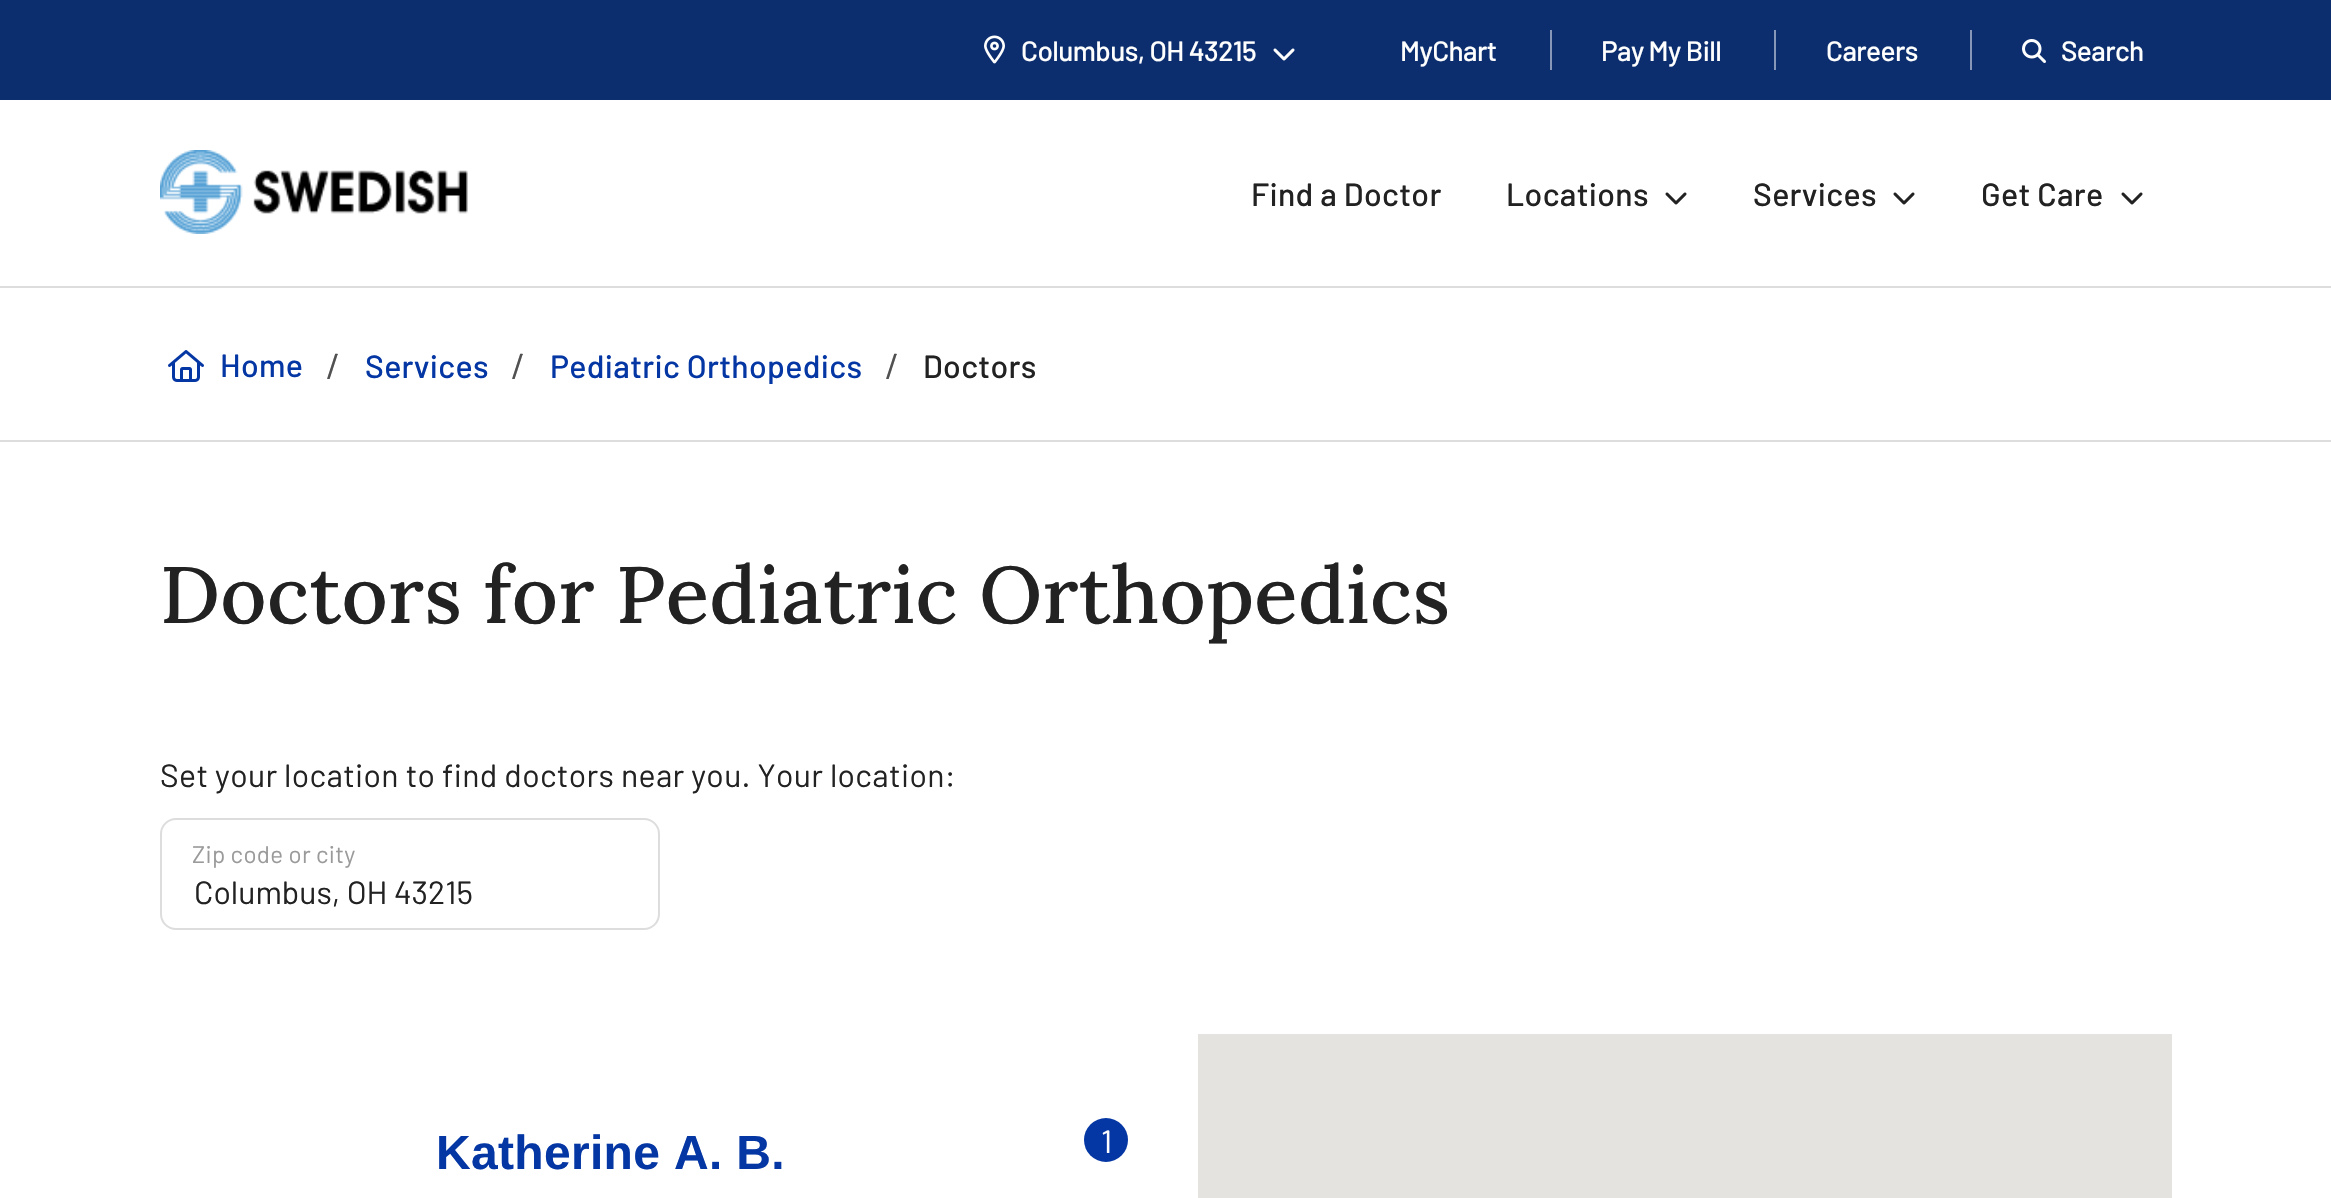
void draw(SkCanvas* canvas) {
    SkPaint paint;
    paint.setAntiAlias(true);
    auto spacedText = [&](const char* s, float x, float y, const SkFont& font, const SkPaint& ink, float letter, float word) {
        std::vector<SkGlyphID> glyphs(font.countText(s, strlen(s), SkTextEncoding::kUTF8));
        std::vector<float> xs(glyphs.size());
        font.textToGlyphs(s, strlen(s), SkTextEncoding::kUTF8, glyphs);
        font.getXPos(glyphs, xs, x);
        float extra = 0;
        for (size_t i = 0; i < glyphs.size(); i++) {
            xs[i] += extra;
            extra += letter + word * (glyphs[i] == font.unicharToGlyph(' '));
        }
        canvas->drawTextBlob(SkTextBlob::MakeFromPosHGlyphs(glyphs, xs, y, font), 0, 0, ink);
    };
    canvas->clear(0xFFFFFFFF);
    paint.setColor(0xFF0C2E6E);
    canvas->drawRect(SkRect::MakeXYWH(0, 0, 2331, 100), paint);
    canvas->drawImageRect(SkImages::DeferredFromEncodedData(SkData::MakeFromFileName("img1.png")), SkRect::MakeXYWH(984, 35, 21, 29), SkSamplingOptions());
    SkFont font1(fontMgr->matchFamilyStyle("Barlow", SkFontStyle(500, SkFontStyle::kNormal_Width, SkFontStyle::kUpright_Slant)), 28);
    font1.setSubpixel(true);
    paint.setColor(0xFFFFFFFF);
    spacedText("Columbus, OH 43215", 1021, 61, font1, paint, -0.6f, 0);
    canvas->drawImageRect(SkImages::DeferredFromEncodedData(SkData::MakeFromFileName("img2.png")), SkRect::MakeXYWH(1273, 48, 22, 13), SkSamplingOptions());
    spacedText("MyChart", 1400, 61, font1, paint, -0.6f, 0);
    paint.setColor(0xFF8697B7);
    canvas->drawRect(SkRect::MakeXYWH(1550, 30, 2, 40), paint);
    paint.setColor(0xFFFFFFFF);
    spacedText("Pay My Bill", 1601, 61, font1, paint, -0.6f, 0);
    paint.setColor(0xFF8697B7);
    canvas->drawRect(SkRect::MakeXYWH(1774, 30, 2, 40), paint);
    paint.setColor(0xFFFFFFFF);
    spacedText("Careers", 1826, 61, font1, paint, -0.6f, 0);
    paint.setColor(0xFF8697B7);
    canvas->drawRect(SkRect::MakeXYWH(1970, 30, 2, 40), paint);
    canvas->drawImageRect(SkImages::DeferredFromEncodedData(SkData::MakeFromFileName("img3.png")), SkRect::MakeXYWH(2022, 39, 24, 24), SkSamplingOptions());
    paint.setColor(0xFFFFFFFF);
    spacedText("Search", 2061, 61, font1, paint, -0.6f, 0);
    paint.setColor(0xFFDDDDDD);
    canvas->drawRect(SkRect::MakeXYWH(0, 286, 2331, 2), paint);
    canvas->drawImageRect(SkImages::DeferredFromEncodedData(SkData::MakeFromFileName("img4.png")), SkRect::MakeXYWH(160, 150, 308, 84), SkSamplingOptions());
    SkFont font2(fontMgr->matchFamilyStyle("Barlow", SkFontStyle(500, SkFontStyle::kNormal_Width, SkFontStyle::kUpright_Slant)), 32);
    font2.setSubpixel(true);
    paint.setColor(0xFF222222);
    spacedText("Find a Doctor", 1251, 206, font2, paint, 0.32f, 0);
    spacedText("Locations", 1506, 206, font2, paint, 0.32f, 0);
    canvas->drawImageRect(SkImages::DeferredFromEncodedData(SkData::MakeFromFileName("img5.png")), SkRect::MakeXYWH(1665, 192, 22, 13), SkSamplingOptions());
    spacedText("Services", 1753, 206, font2, paint, 0.32f, 0);
    canvas->drawImageRect(SkImages::DeferredFromEncodedData(SkData::MakeFromFileName("img5.png")), SkRect::MakeXYWH(1893, 192, 22, 13), SkSamplingOptions());
    spacedText("Get Care", 1981, 206, font2, paint, 0.32f, 0);
    canvas->drawImageRect(SkImages::DeferredFromEncodedData(SkData::MakeFromFileName("img5.png")), SkRect::MakeXYWH(2121, 192, 22, 13), SkSamplingOptions());
    paint.setColor(0xFFDDDDDD);
    canvas->drawRect(SkRect::MakeXYWH(0, 440, 2331, 2), paint);
    canvas->drawImageRect(SkImages::DeferredFromEncodedData(SkData::MakeFromFileName("img6.png")), SkRect::MakeXYWH(168, 350, 36, 32), SkSamplingOptions());
    paint.setColor(0xFF0537A4);
    spacedText("Home", 220, 377, font2, paint, 0.32f, 0);
    SkFont font3(fontMgr->matchFamilyStyle("Barlow", SkFontStyle::Normal()), 36);
    font3.setSubpixel(true);
    paint.setColor(0xFF515151);
    spacedText("/", 326, 379, font3, paint, 0.32f, 0);
    paint.setColor(0xFF0537A4);
    spacedText("Services", 365, 378, font2, paint, 0.32f, 0);
    paint.setColor(0xFF515151);
    spacedText("/", 511, 379, font3, paint, 0.32f, 0);
    paint.setColor(0xFF0537A4);
    spacedText("Pediatric Orthopedics", 550, 378, font2, paint, 0.32f, 0);
    paint.setColor(0xFF515151);
    spacedText("/", 885, 379, font3, paint, 0.32f, 0);
    paint.setColor(0xFF222222);
    spacedText("Doctors", 923, 378, font2, paint, 0.32f, 0);
    SkFont font4(fontMgr->matchFamilyStyle("Lora", SkFontStyle(500, SkFontStyle::kNormal_Width, SkFontStyle::kUpright_Slant)), 80);
    font4.setSubpixel(true);
    spacedText("Doctors for Pediatric Orthopedics", 160, 623, font4, paint, 0.32f, 0);
    SkFont font5(fontMgr->matchFamilyStyle("Barlow", SkFontStyle::Normal()), 32);
    font5.setSubpixel(true);
    spacedText("Set your location to find doctors near you. Your location:", 160, 787, font5, paint, 0.32f, 0);
    paint.setStyle(SkPaint::kStroke_Style);
    paint.setStrokeWidth(2);
    paint.setColor(0xFFDDDDDD);
    canvas->drawRoundRect(SkRect::MakeXYWH(161, 819, 498, 110), 15, 15, paint);
    SkFont font6(fontMgr->matchFamilyStyle("Barlow", SkFontStyle::Normal()), 24);
    font6.setSubpixel(true);
    paint.setStyle(SkPaint::kFill_Style);
    paint.setColor(0xFF9A9A9A);
    spacedText("Zip code or city", 192, 863, font6, paint, 0.32f, 0);
    paint.setColor(0xFF222222);
    canvas->drawString("Columbus, OH 43215", 194, 904, font5, paint);
    SkFont font7(fontMgr->matchFamilyStyle("Liberation Sans", SkFontStyle::Bold()), 48);
    font7.setSubpixel(true);
    paint.setColor(0xFF0537A4);
    spacedText("Katherine A. B.", 436, 1169, font7, paint, 0.32f, 0);
    canvas->drawCircle(1106, 1140, 22, paint);
    paint.setColor(0xFFFFFFFF);
    spacedText("1", 1101, 1153, font5, paint, 0.32f, 0);
    paint.setColor(0xFFE5E3DF);
    canvas->drawRect(SkRect::MakeXYWH(1198, 1034, 974, 164), paint);
}
